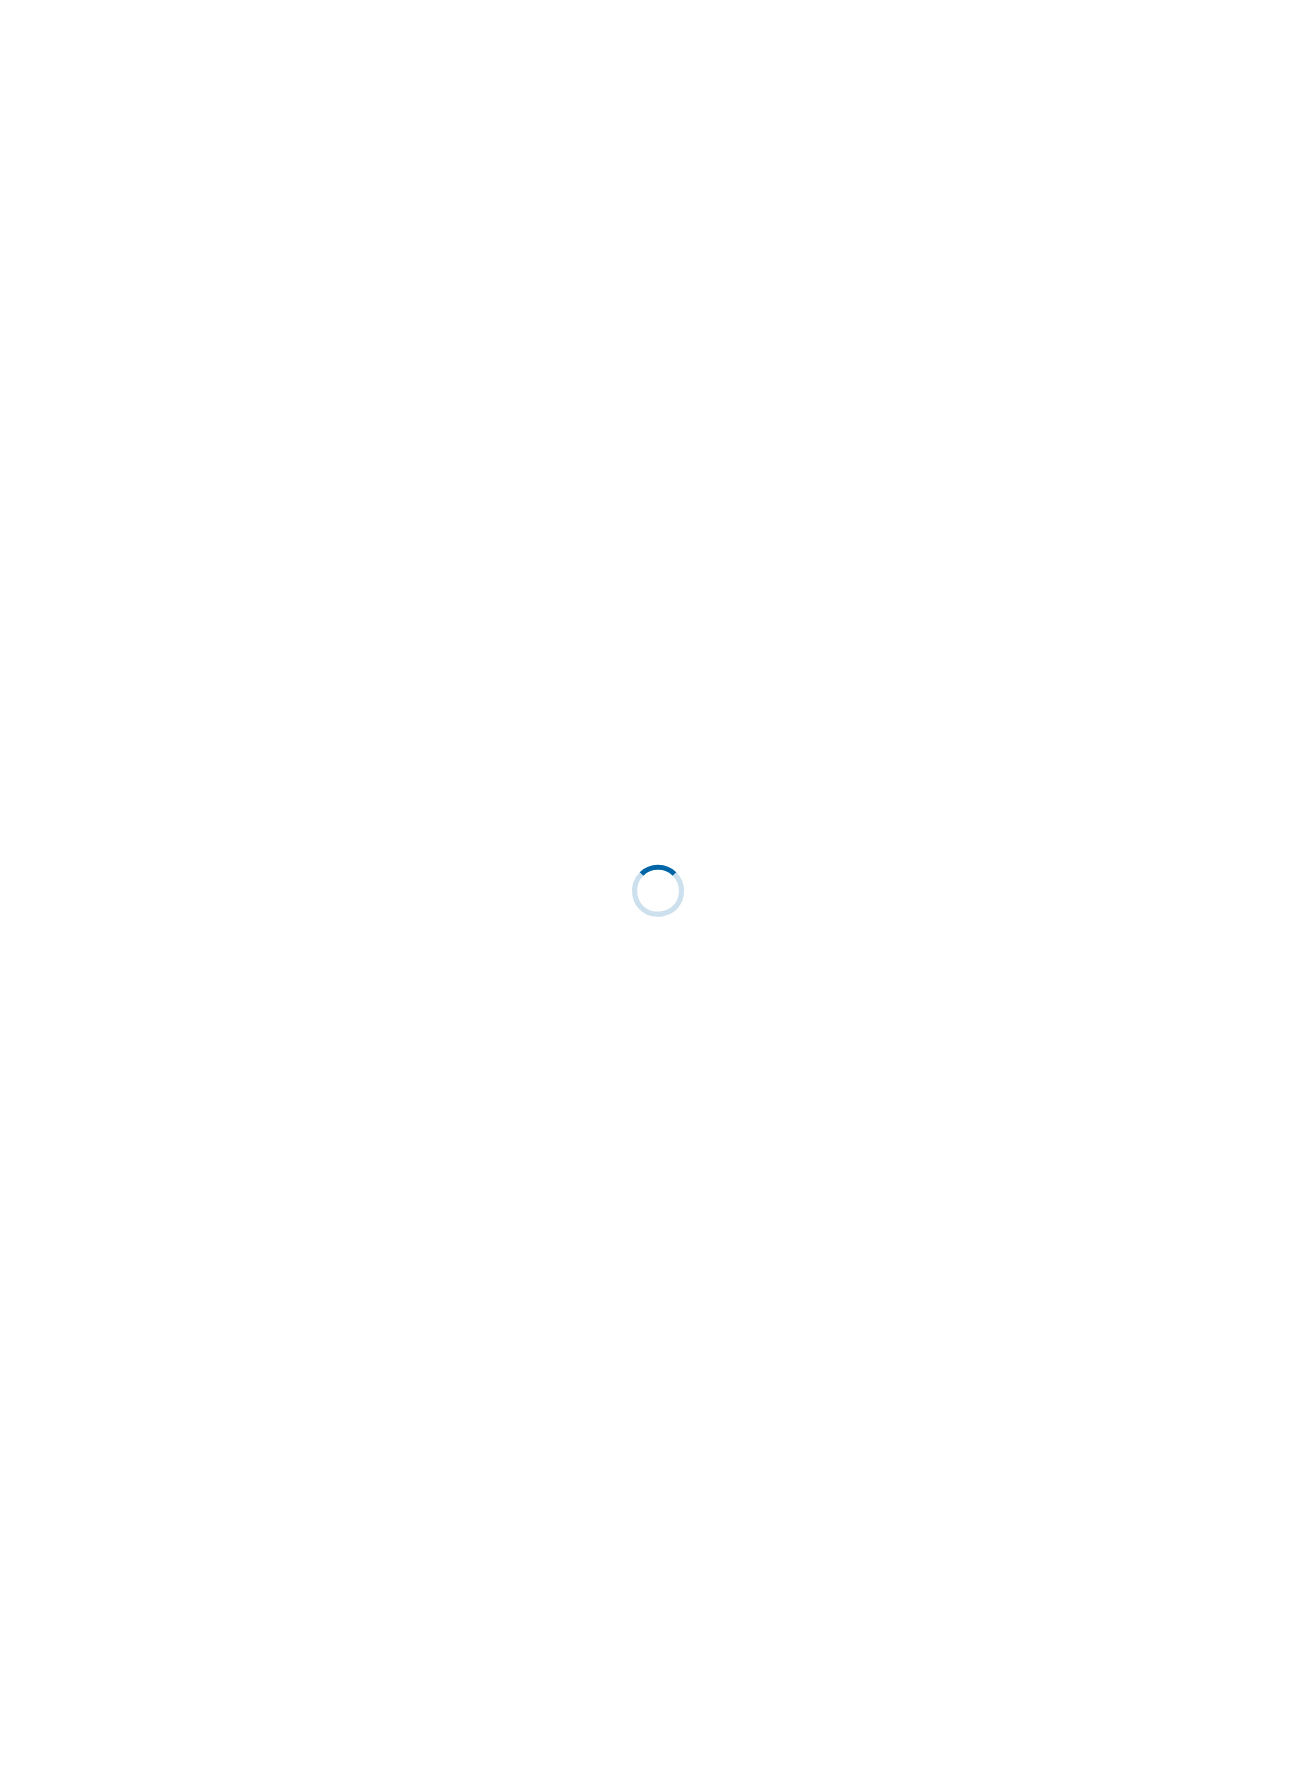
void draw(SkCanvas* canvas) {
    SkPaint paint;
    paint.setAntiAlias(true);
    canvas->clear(0xFFFFFFFF);
    paint.setStyle(SkPaint::kStroke_Style);
    paint.setStrokeWidth(5.2f);
    paint.setColor(0xFF0065A6);
    canvas->drawPath(SkPathBuilder().moveTo(641.5f, 874).cubicTo(650.5f, 865, 665.5f, 865, 674.5f, 874).detach(), paint);
    paint.setColor(0x330065A6);
    canvas->drawPath(SkPathBuilder().moveTo(674.5f, 874).cubicTo(679, 878.5f, 681.5f, 884.5f, 681.5f, 891).cubicTo(681.5f, 919, 640.5f, 923, 635, 895.5f).cubicTo(633.5f, 887.5f, 636, 879.5f, 641.5f, 874).detach(), paint);
}
